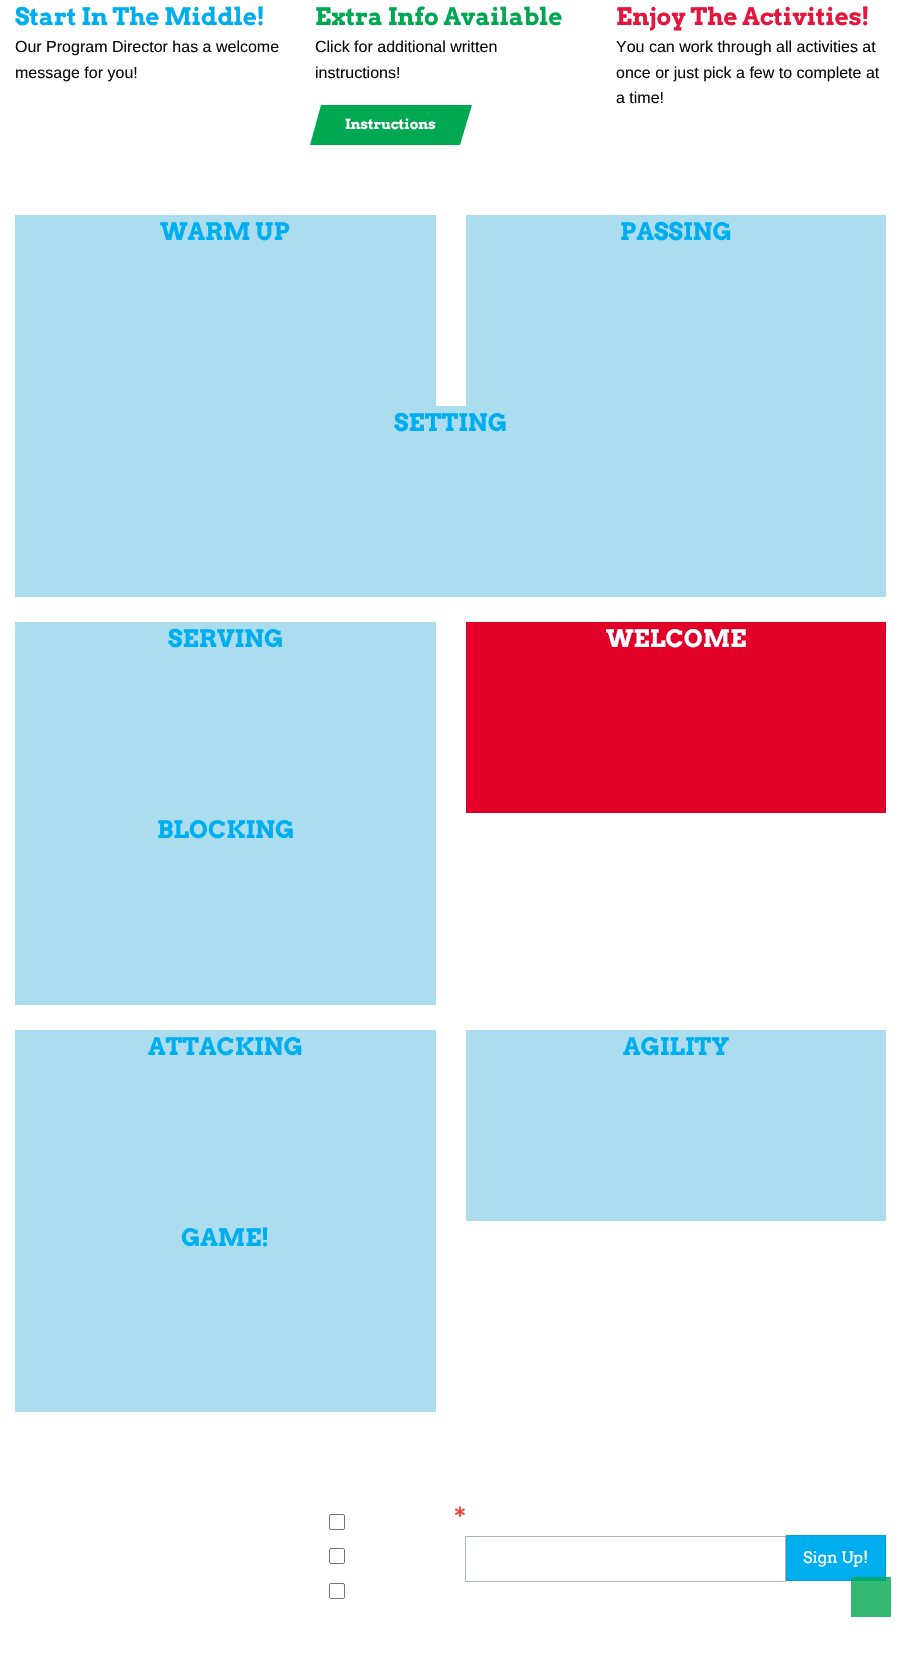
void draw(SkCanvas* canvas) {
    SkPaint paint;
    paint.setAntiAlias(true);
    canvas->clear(0xFFFFFFFF);
    SkFont font1(fontMgr->matchFamilyStyle("Arvo", SkFontStyle::Bold()), 24);
    font1.setSubpixel(true);
    paint.setColor(0xFF00AEEF);
    canvas->drawString("Start In The Middle!", 15, 25, font1, paint);
    SkFont font2(fontMgr->matchFamilyStyle("Liberation Sans", SkFontStyle::Normal()), 16);
    font2.setSubpixel(true);
    paint.setColor(0xFF0A0A0A);
    canvas->drawString("Our Program Director has a welcome", 15, 52, font2, paint);
    canvas->drawString("message for you!", 15, 78, font2, paint);
    paint.setColor(0xFF00A851);
    canvas->drawString("Extra Info Available", 315, 25, font1, paint);
    paint.setColor(0xFF0A0A0A);
    canvas->drawString("Click for additional written", 315, 52, font2, paint);
    canvas->drawString("instructions!", 315, 78, font2, paint);
    paint.setColor(0xFF00A851);
    canvas->drawPath(SkPathBuilder().moveTo(321, 105).lineTo(472, 105).lineTo(460, 145).lineTo(310, 145).close().detach(), paint);
    SkFont font3(fontMgr->matchFamilyStyle("Arvo", SkFontStyle::Bold()), 14);
    font3.setSubpixel(true);
    paint.setColor(0xFFFFFFFF);
    canvas->drawString("Instructions", 345, 129, font3, paint);
    paint.setColor(0xFFE3173E);
    canvas->drawString("Enjoy The Activities!", 616, 25, font1, paint);
    paint.setColor(0xFF0A0A0A);
    canvas->drawString("You can work through all activities at", 616, 52, font2, paint);
    canvas->drawString("once or just pick a few to complete at", 616, 78, font2, paint);
    canvas->drawString("a time!", 616, 103, font2, paint);
    paint.setColor(0xFFACDDEF);
    canvas->drawRect(SkRect::MakeXYWH(15, 215, 421, 191), paint);
    paint.setColor(0xFF00AEEF);
    canvas->drawString("WARM UP", 160, 240, font1, paint);
    paint.setColor(0xFFACDDEF);
    canvas->drawRect(SkRect::MakeXYWH(466, 215, 420, 191), paint);
    paint.setColor(0xFF00AEEF);
    canvas->drawString("PASSING", 620, 240, font1, paint);
    paint.setColor(0xFFACDDEF);
    canvas->drawRect(SkRect::MakeXYWH(15, 406, 871, 191), paint);
    paint.setColor(0xFF00AEEF);
    canvas->drawString("SETTING", 394, 431, font1, paint);
    paint.setColor(0xFFACDDEF);
    canvas->drawRect(SkRect::MakeXYWH(15, 622, 421, 383), paint);
    paint.setColor(0xFF00AEEF);
    canvas->drawString("SERVING", 168, 647, font1, paint);
    paint.setColor(0xFFE20029);
    canvas->drawRect(SkRect::MakeXYWH(466, 622, 420, 191), paint);
    paint.setColor(0xFFFFFFFF);
    canvas->drawString("WELCOME", 606, 647, font1, paint);
    paint.setColor(0xFF00AEEF);
    canvas->drawString("BLOCKING", 157, 838, font1, paint);
    paint.setColor(0xFFACDDEF);
    canvas->drawRect(SkRect::MakeXYWH(15, 1030, 421, 382), paint);
    paint.setColor(0xFF00AEEF);
    canvas->drawString("ATTACKING", 148, 1055, font1, paint);
    paint.setColor(0xFFACDDEF);
    canvas->drawRect(SkRect::MakeXYWH(466, 1030, 420, 191), paint);
    paint.setColor(0xFF00AEEF);
    canvas->drawString("AGILITY", 623, 1055, font1, paint);
    canvas->drawString("GAME!", 181, 1246, font1, paint);
    SkFont font4(fontMgr->matchFamilyStyle("DejaVu Sans", SkFontStyle::Bold()), 16);
    font4.setSubpixel(true);
    paint.setColor(0xFFF5463B);
    canvas->drawString("∗", 453, 1517, font4, paint);
    paint.setStyle(SkPaint::kStroke_Style);
    paint.setStrokeWidth(1);
    paint.setColor(0xFFB0B6BB);
    canvas->drawRect(SkRect::MakeXYWH(465.5f, 1536.5f, 320, 45), paint);
    paint.setColor(0xFF767676);
    canvas->drawRoundRect(SkRect::MakeXYWH(329.5f, 1514.5f, 15, 15), 1.5f, 1.5f, paint);
    canvas->drawRoundRect(SkRect::MakeXYWH(329.5f, 1548.5f, 15, 15), 1.5f, 1.5f, paint);
    canvas->drawRoundRect(SkRect::MakeXYWH(329.5f, 1583.5f, 15, 15), 1.5f, 1.5f, paint);
    paint.setStyle(SkPaint::kFill_Style);
    paint.setColor(0xFF00AEEF);
    canvas->drawRect(SkRect::MakeXYWH(786.5f, 1535.5f, 99, 45), paint);
    paint.setStyle(SkPaint::kStroke_Style);
    paint.setColor(0xFF00A2D3);
    canvas->drawRect(SkRect::MakeXYWH(786.5f, 1535.5f, 99, 45), paint);
    SkFont font5(fontMgr->matchFamilyStyle("Arvo", SkFontStyle::Normal()), 16);
    font5.setSubpixel(true);
    paint.setStyle(SkPaint::kFill_Style);
    paint.setColor(0xFFFFFFFF);
    canvas->drawString("Sign Up!", 803, 1563, font5, paint);
    paint.setColor(0xCC00A851);
    canvas->drawRect(SkRect::MakeXYWH(851, 1577, 40, 40), paint);
}
